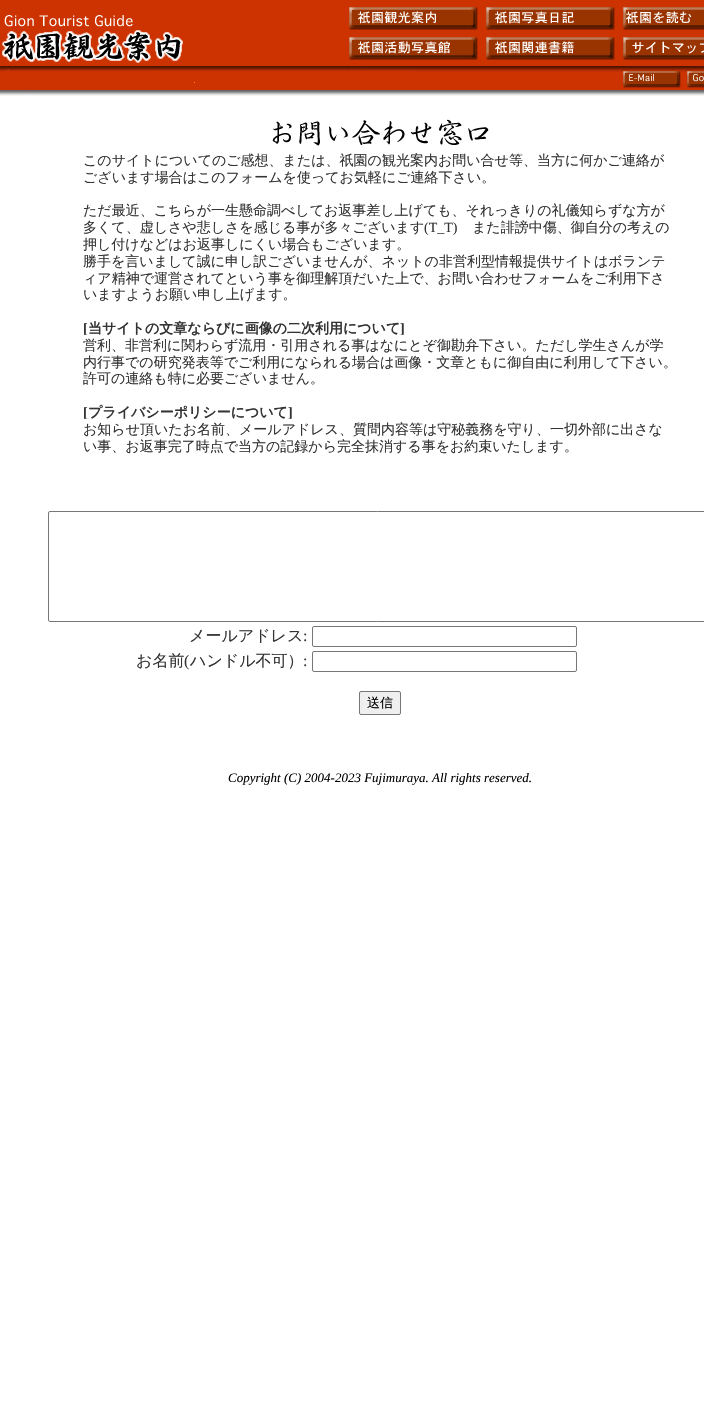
void draw(SkCanvas* canvas) {
    SkPaint paint;
    paint.setAntiAlias(true);
    canvas->clear(0xFFFFFFFF);
    canvas->drawImageRect(SkImages::DeferredFromEncodedData(SkData::MakeFromFileName("img1.png")), SkRect::MakeXYWH(0, 0, 623, 96), SkSamplingOptions());
    canvas->drawImageRect(SkImages::DeferredFromEncodedData(SkData::MakeFromFileName("img2.png")), SkRect::MakeXYWH(2, 15, 181, 48), SkSamplingOptions());
    canvas->drawImageRect(SkImages::DeferredFromEncodedData(SkData::MakeFromFileName("img3.png")), SkRect::MakeXYWH(349, 0, 137, 30), SkSamplingOptions());
    canvas->drawImageRect(SkImages::DeferredFromEncodedData(SkData::MakeFromFileName("img4.png")), SkRect::MakeXYWH(486, 0, 137, 30), SkSamplingOptions());
    canvas->drawImageRect(SkImages::DeferredFromEncodedData(SkData::MakeFromFileName("img5.png")), SkRect::MakeXYWH(623, 0, 81, 30), SkSamplingOptions());
    canvas->drawImageRect(SkImages::DeferredFromEncodedData(SkData::MakeFromFileName("img6.png")), SkRect::MakeXYWH(349, 30, 137, 36), SkSamplingOptions());
    canvas->drawImageRect(SkImages::DeferredFromEncodedData(SkData::MakeFromFileName("img7.png")), SkRect::MakeXYWH(486, 30, 137, 36), SkSamplingOptions());
    canvas->drawImageRect(SkImages::DeferredFromEncodedData(SkData::MakeFromFileName("img8.png")), SkRect::MakeXYWH(623, 30, 81, 36), SkSamplingOptions());
    canvas->drawImageRect(SkImages::DeferredFromEncodedData(SkData::MakeFromFileName("img9.png")), SkRect::MakeXYWH(623, 66, 64, 29), SkSamplingOptions());
    paint.setColor(0xFFF5F5F5);
    canvas->drawRect(SkRect::MakeXYWH(623, 95, 81, 1), paint);
    canvas->drawImageRect(SkImages::DeferredFromEncodedData(SkData::MakeFromFileName("img10.png")), SkRect::MakeXYWH(3, 69, 408, 20), SkSamplingOptions());
    canvas->drawImageRect(SkImages::DeferredFromEncodedData(SkData::MakeFromFileName("img11.png")), SkRect::MakeXYWH(687, 66, 17, 29), SkSamplingOptions());
    canvas->drawImageRect(SkImages::DeferredFromEncodedData(SkData::MakeFromFileName("img12.png")), SkRect::MakeXYWH(272, 119, 217, 27), SkSamplingOptions());
    SkFont font1(fontMgr->matchFamilyStyle("WenQuanYi Zen Hei", SkFontStyle(500, SkFontStyle::kNormal_Width, SkFontStyle::kUpright_Slant)), 14);
    font1.setSubpixel(true);
    paint.setColor(0xFF333333);
    canvas->drawString("このサイトについてのご感想、または、祇園の観光案内お問い合せ等、当方に何かご連絡が", 83, 165, font1, paint);
    canvas->drawString("ございます場合はこのフォームを使ってお気軽にご連絡下さい。", 83, 182, font1, paint);
    canvas->drawString("ただ最近、こちらが一生懸命調べしてお返事差し上げても、それっきりの礼儀知らずな方が", 83, 215, font1, paint);
    canvas->drawString("多くて、虚しさや悲しさを感じる事が多々ございます", 83, 232, font1, paint);
    SkFont font2(fontMgr->matchFamilyStyle("Liberation Serif", SkFontStyle::Normal()), 14);
    font2.setSubpixel(true);
    canvas->drawString("(T_T)", 424, 232, font2, paint);
    canvas->drawString("また誹謗中傷、御自分の考えの", 472, 232, font1, paint);
    canvas->drawString("押し付けなどはお返事しにくい場合もございます。", 83, 249, font1, paint);
    canvas->drawString("勝手を言いまして誠に申し訳ございませんが、ネットの非営利型情報提供サイトはボランテ", 83, 266, font1, paint);
    canvas->drawString("ィア精神で運営されてという事を御理解頂だいた上で、お問い合わせフォームをご利用下さ", 83, 283, font1, paint);
    canvas->drawString("いますようお願い申し上げます。", 83, 299, font1, paint);
    SkFont font3(fontMgr->matchFamilyStyle("Liberation Serif", SkFontStyle::Bold()), 14);
    font3.setSubpixel(true);
    canvas->drawString("[", 83, 333, font3, paint);
    SkFont font4(fontMgr->matchFamilyStyle("WenQuanYi Zen Hei", SkFontStyle::Bold()), 14);
    font4.setSubpixel(true);
    canvas->drawString("当サイトの文章ならびに画像の二次利用について", 88, 333, font4, paint);
    canvas->drawString("]", 400, 333, font3, paint);
    canvas->drawString("営利、非営利に関わらず流用・引用される事はなにとぞ御勘弁下さい。ただし学生さんが学", 83, 350, font1, paint);
    canvas->drawString("内行事での研究発表等でご利用になられる場合は画像・文章ともに御自由に利用して下さい。", 83, 367, font1, paint);
    canvas->drawString("許可の連絡も特に必要ございません。", 83, 383, font1, paint);
    canvas->drawString("[", 83, 417, font3, paint);
    canvas->drawString("プライバシーポリシーについて", 88, 417, font4, paint);
    canvas->drawString("]", 288, 417, font3, paint);
    canvas->drawString("お知らせ頂いたお名前、メールアドレス、質問内容等は守秘義務を守り、一切外部に出さな", 83, 434, font1, paint);
    canvas->drawString("い事、お返事完了時点で当方の記録から完全抹消する事をお約束いたします。", 83, 451, font1, paint);
    paint.setStyle(SkPaint::kStroke_Style);
    paint.setStrokeWidth(1);
    paint.setColor(0xFF767676);
    canvas->drawRoundRect(SkRect::MakeXYWH(48.5f, 511.5f, 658, 110), 1.5f, 1.5f, paint);
    SkFont font5(fontMgr->matchFamilyStyle("WenQuanYi Zen Hei", SkFontStyle(500, SkFontStyle::kNormal_Width, SkFontStyle::kUpright_Slant)), 16);
    font5.setSubpixel(true);
    paint.setStyle(SkPaint::kFill_Style);
    paint.setColor(0xFF333333);
    canvas->drawString("メールアドレス", 189, 641, font5, paint);
    SkFont font6(fontMgr->matchFamilyStyle("Liberation Serif", SkFontStyle::Normal()), 16);
    font6.setSubpixel(true);
    canvas->drawString(":", 303, 641, font6, paint);
    paint.setStyle(SkPaint::kStroke_Style);
    paint.setColor(0xFF767676);
    canvas->drawRoundRect(SkRect::MakeXYWH(312.5f, 626.5f, 264, 20), 1.5f, 1.5f, paint);
    paint.setStyle(SkPaint::kFill_Style);
    paint.setColor(0xFF333333);
    canvas->drawString("お名前", 136, 666, font5, paint);
    canvas->drawString("(", 184, 666, font6, paint);
    canvas->drawString("ハンドル不可）", 190, 666, font5, paint);
    canvas->drawString(":", 303, 666, font6, paint);
    paint.setStyle(SkPaint::kStroke_Style);
    paint.setColor(0xFF767676);
    canvas->drawRoundRect(SkRect::MakeXYWH(312.5f, 651.5f, 264, 20), 1.5f, 1.5f, paint);
    paint.setStyle(SkPaint::kFill_Style);
    paint.setColor(0xFFEFEFEF);
    canvas->drawRoundRect(SkRect::MakeXYWH(359.5f, 691.5f, 41, 23), 1.5f, 1.5f, paint);
    paint.setStyle(SkPaint::kStroke_Style);
    paint.setColor(0xFF767676);
    canvas->drawRoundRect(SkRect::MakeXYWH(359.5f, 691.5f, 41, 23), 1.5f, 1.5f, paint);
    SkFont font7(fontMgr->matchFamilyStyle("WenQuanYi Zen Hei", SkFontStyle(500, SkFontStyle::kNormal_Width, SkFontStyle::kUpright_Slant)), 13);
    font7.setSubpixel(true);
    paint.setStyle(SkPaint::kFill_Style);
    paint.setColor(0xFF000000);
    canvas->drawString("送信", 367, 707, font7, paint);
    SkFont font8(fontMgr->matchFamilyStyle("Liberation Serif", SkFontStyle::Italic()), 13);
    font8.setSubpixel(true);
    canvas->drawString("Copyright (C) 2004-2023 Fujimuraya. All rights reserved.", 228, 782, font8, paint);
}
